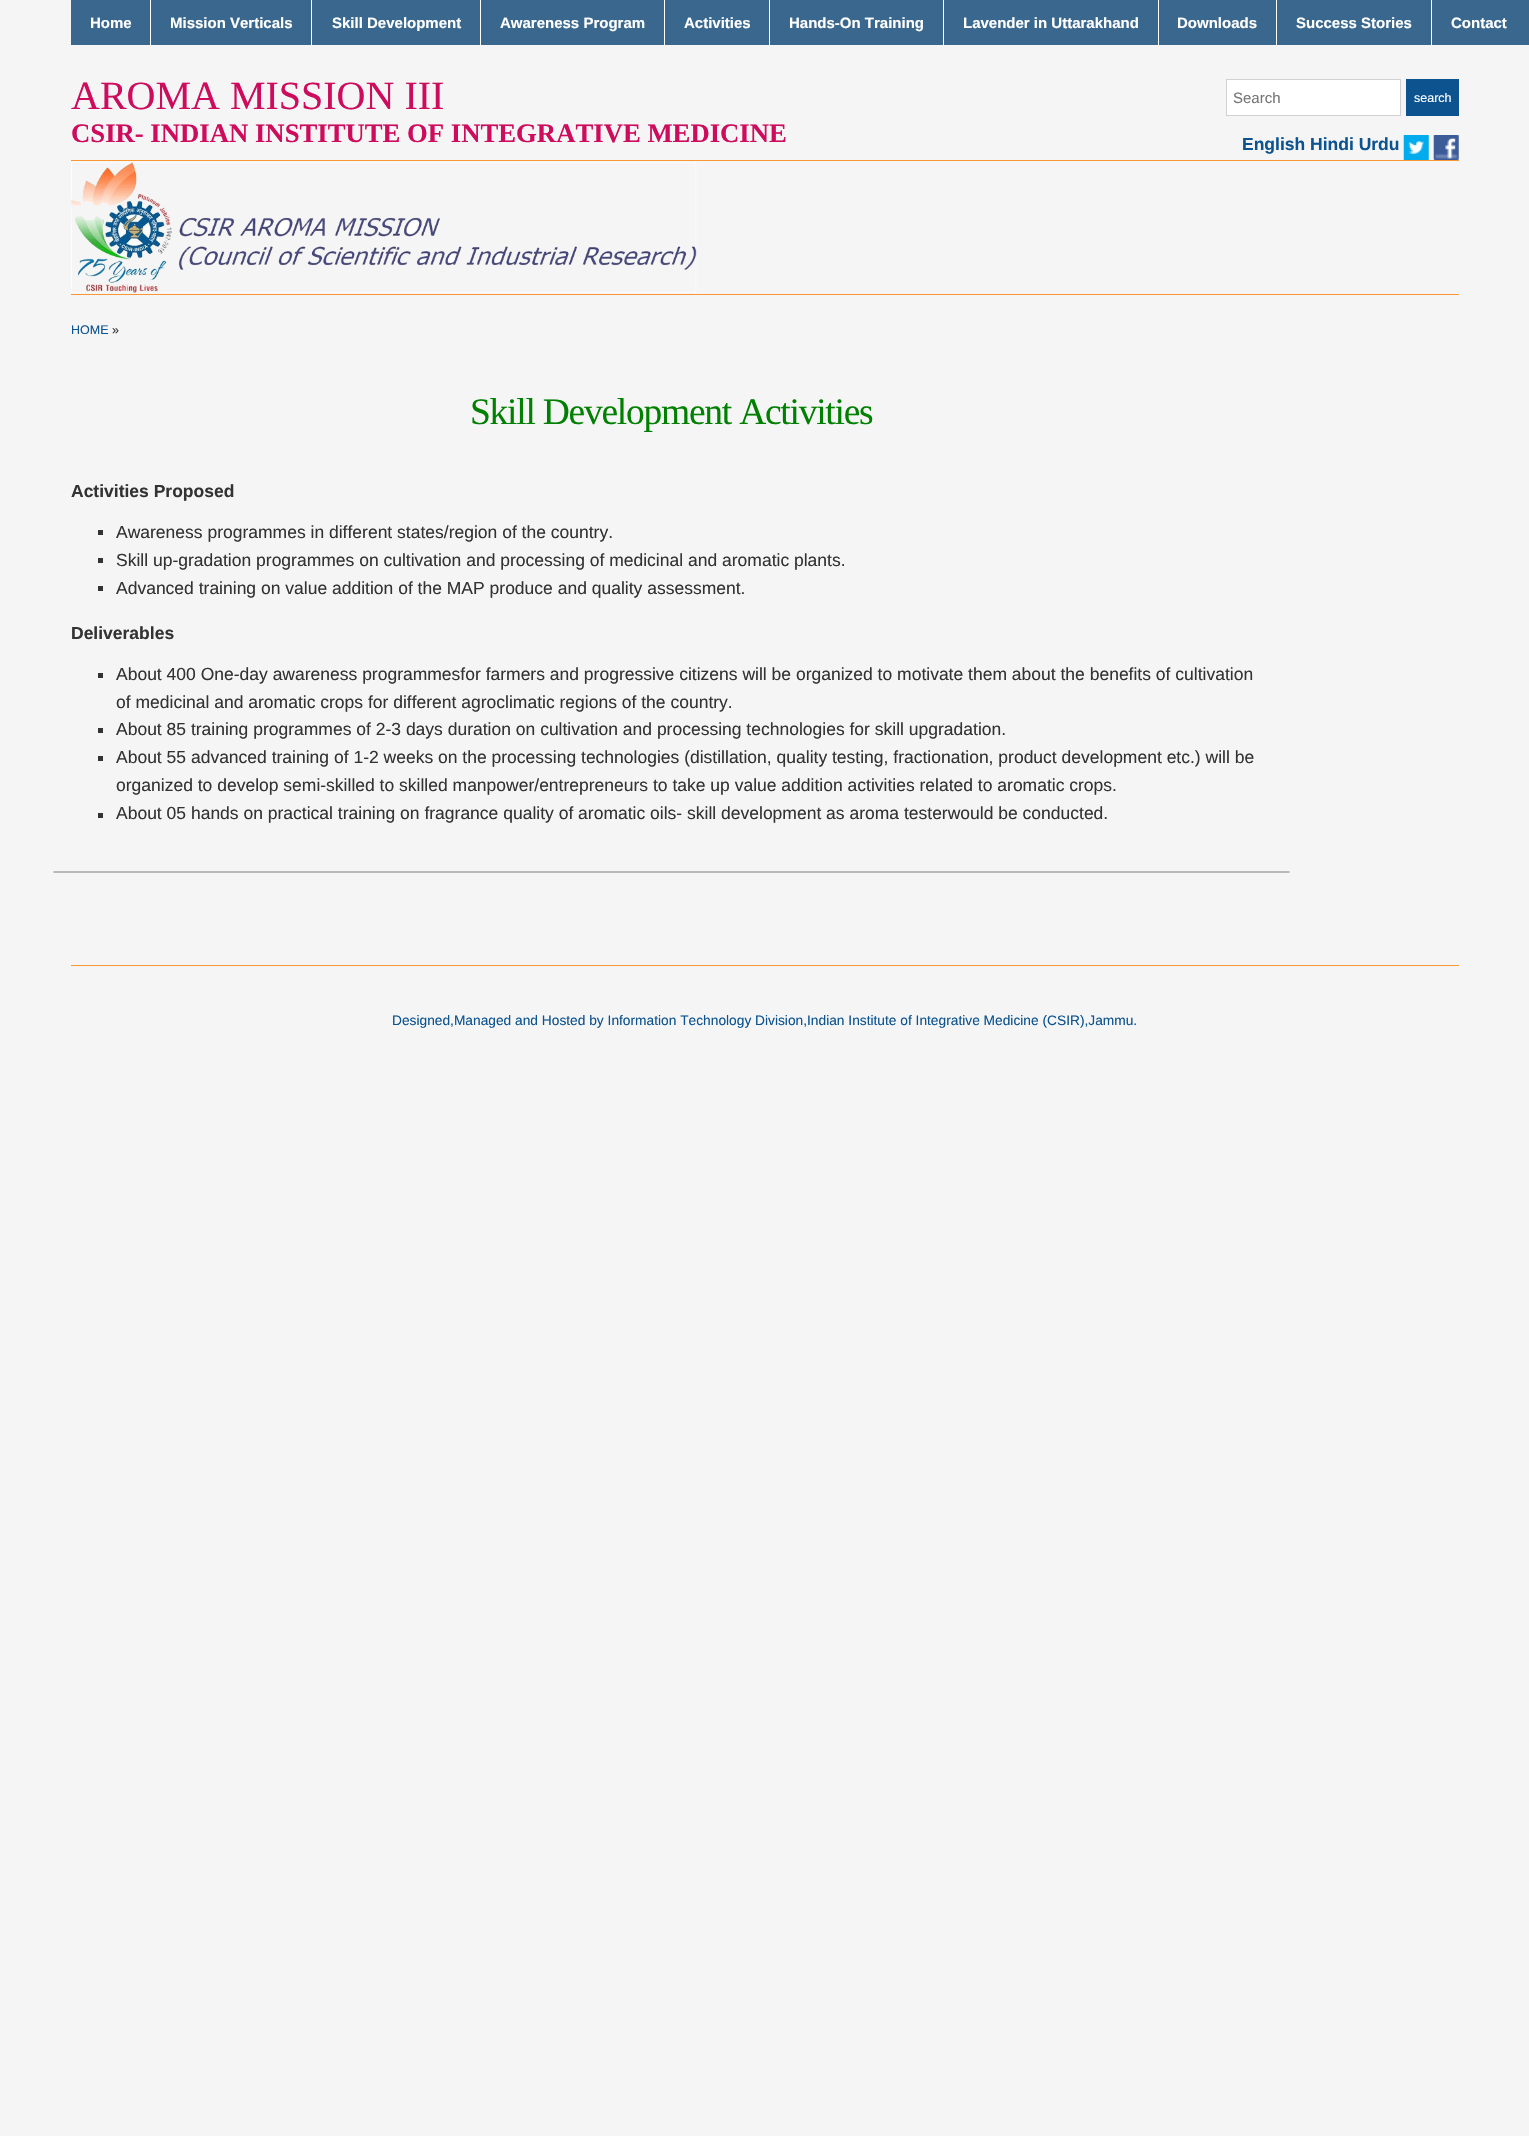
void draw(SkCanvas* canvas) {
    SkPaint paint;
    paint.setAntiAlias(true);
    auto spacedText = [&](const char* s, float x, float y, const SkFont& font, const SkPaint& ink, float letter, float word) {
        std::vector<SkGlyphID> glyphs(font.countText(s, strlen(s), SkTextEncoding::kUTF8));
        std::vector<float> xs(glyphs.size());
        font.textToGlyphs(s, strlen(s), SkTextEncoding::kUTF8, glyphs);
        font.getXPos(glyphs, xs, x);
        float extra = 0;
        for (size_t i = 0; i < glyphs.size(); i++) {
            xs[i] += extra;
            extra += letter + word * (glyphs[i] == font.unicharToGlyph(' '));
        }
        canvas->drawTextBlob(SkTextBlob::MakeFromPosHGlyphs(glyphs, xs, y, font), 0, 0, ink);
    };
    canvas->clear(0xFFF5F5F5);
    paint.setColor(0xFF3A678D);
    canvas->drawRect(SkRect::MakeXYWH(71, 0, 1458, 45), paint);
    paint.setColor(0xFFFFFFFF);
    canvas->drawRect(SkRect::MakeXYWH(150, 0, 1, 45), paint);
    SkFont font1(fontMgr->matchFamilyStyle("Liberation Sans", SkFontStyle::Bold()), 15);
    font1.setSubpixel(true);
    canvas->drawString("Home", 90, 28, font1, paint);
    canvas->drawRect(SkRect::MakeXYWH(311, 0, 1, 45), paint);
    canvas->drawString("Mission Verticals", 170, 28, font1, paint);
    canvas->drawRect(SkRect::MakeXYWH(480, 0, 1, 45), paint);
    canvas->drawString("Skill Development", 332, 28, font1, paint);
    canvas->drawRect(SkRect::MakeXYWH(664, 0, 1, 45), paint);
    canvas->drawString("Awareness Program", 500, 28, font1, paint);
    canvas->drawRect(SkRect::MakeXYWH(769, 0, 1, 45), paint);
    canvas->drawString("Activities", 684, 28, font1, paint);
    canvas->drawRect(SkRect::MakeXYWH(943, 0, 1, 45), paint);
    canvas->drawString("Hands-On Training", 789, 28, font1, paint);
    canvas->drawRect(SkRect::MakeXYWH(1158, 0, 1, 45), paint);
    canvas->drawString("Lavender in Uttarakhand", 963, 28, font1, paint);
    canvas->drawRect(SkRect::MakeXYWH(1276, 0, 1, 45), paint);
    canvas->drawString("Downloads", 1177, 28, font1, paint);
    canvas->drawRect(SkRect::MakeXYWH(1431, 0, 1, 45), paint);
    canvas->drawString("Success Stories", 1296, 28, font1, paint);
    canvas->drawString("Contact", 1451, 28, font1, paint);
    SkFont font2(fontMgr->matchFamilyStyle("Liberation Serif", SkFontStyle::Normal()), 40);
    font2.setSubpixel(true);
    paint.setColor(0xFFCE0C5D);
    canvas->drawString("AROMA MISSION III", 71, 109, font2, paint);
    SkFont font3(fontMgr->matchFamilyStyle("Liberation Serif", SkFontStyle::Bold()), 26.7f);
    font3.setSubpixel(true);
    canvas->drawString("CSIR- INDIAN INSTITUTE OF INTEGRATIVE MEDICINE", 71, 142, font3, paint);
    paint.setColor(0xFFFFFFFF);
    canvas->drawRect(SkRect::MakeXYWH(1226.5f, 79.5f, 174, 36), paint);
    paint.setStyle(SkPaint::kStroke_Style);
    paint.setStrokeWidth(1);
    paint.setColor(0xFFD1D1D1);
    canvas->drawRect(SkRect::MakeXYWH(1226.5f, 79.5f, 174, 36), paint);
    SkFont font4(fontMgr->matchFamilyStyle("Liberation Sans", SkFontStyle::Normal()), 15);
    font4.setSubpixel(true);
    paint.setStyle(SkPaint::kFill_Style);
    paint.setColor(0xFF757575);
    canvas->drawString("Search", 1233, 103, font4, paint);
    paint.setColor(0xFF0C5390);
    canvas->drawRect(SkRect::MakeXYWH(1406, 79, 53, 37), paint);
    SkFont font5(fontMgr->matchFamilyStyle("Liberation Sans", SkFontStyle::Normal()), 12.5f);
    font5.setSubpixel(true);
    paint.setColor(0xFFFFFFFF);
    canvas->drawString("search", 1414, 102, font5, paint);
    SkFont font6(fontMgr->matchFamilyStyle("Liberation Sans", SkFontStyle::Bold()), 17.5f);
    font6.setSubpixel(true);
    paint.setColor(0xFF0C5390);
    canvas->drawString("English Hindi Urdu", 1242, 150, font6, paint);
    canvas->drawImageRect(SkImages::DeferredFromEncodedData(SkData::MakeFromFileName("img1.png")), SkRect::MakeXYWH(1403, 135, 26, 25), SkSamplingOptions());
    canvas->drawImageRect(SkImages::DeferredFromEncodedData(SkData::MakeFromFileName("img2.png")), SkRect::MakeXYWH(1433, 135, 26, 25), SkSamplingOptions());
    paint.setColor(0xFFF99734);
    canvas->drawRect(SkRect::MakeXYWH(71, 160, 1388, 1), paint);
    canvas->drawRect(SkRect::MakeXYWH(71, 294, 1388, 1), paint);
    canvas->drawImageRect(SkImages::DeferredFromEncodedData(SkData::MakeFromFileName("img3.png")), SkRect::MakeXYWH(71, 162, 626, 131), SkSamplingOptions());
    paint.setColor(0xFF0C5390);
    canvas->drawString("HOME", 71, 334, font5, paint);
    paint.setColor(0xFF333333);
    canvas->drawString("»", 112, 334, font5, paint);
    canvas->save();
    canvas->clipRect(SkRect::MakeXYWH(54, 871, 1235, 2));
    paint.setColor(0x1F000000);
    paint.setMaskFilter(SkMaskFilter::MakeBlur(kNormal_SkBlurStyle, 0.5f));
    canvas->drawRect(SkRect::MakeXYWH(54, 381, 1235, 492), paint);
    paint.setMaskFilter(nullptr);
    canvas->restore();
    canvas->save();
    canvas->clipRect(SkRect::MakeXYWH(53, 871, 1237, 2));
    paint.setColor(0x24000000);
    paint.setMaskFilter(SkMaskFilter::MakeBlur(kNormal_SkBlurStyle, 0.5f));
    canvas->drawRect(SkRect::MakeXYWH(53, 379, 1237, 494), paint);
    paint.setMaskFilter(nullptr);
    canvas->restore();
    SkFont font7(fontMgr->matchFamilyStyle("Liberation Serif", SkFontStyle::Normal()), 37.5f);
    font7.setSubpixel(true);
    paint.setColor(0xFF008000);
    spacedText("Skill Development Activities", 470, 424, font7, paint, -1.25f, 0);
    paint.setColor(0xFF333333);
    canvas->drawString("Activities Proposed", 71, 497, font6, paint);
    canvas->drawRect(SkRect::MakeXYWH(98, 530, 5, 5), paint);
    SkFont font8(fontMgr->matchFamilyStyle("Liberation Sans", SkFontStyle::Normal()), 17.5f);
    font8.setSubpixel(true);
    canvas->drawString("Awareness programmes in different states/region of the country.", 116, 538, font8, paint);
    canvas->drawRect(SkRect::MakeXYWH(98, 558, 5, 5), paint);
    canvas->drawString("Skill up-gradation programmes on cultivation and processing of medicinal and aromatic plants.", 116, 566, font8, paint);
    canvas->drawRect(SkRect::MakeXYWH(98, 586, 5, 5), paint);
    canvas->drawString("Advanced training on value addition of the MAP produce and quality assessment.", 116, 594, font8, paint);
    canvas->drawString("Deliverables", 71, 639, font6, paint);
    canvas->drawRect(SkRect::MakeXYWH(98, 673, 5, 5), paint);
    canvas->drawString("About 400 One-day awareness programmesfor farmers and progressive citizens will be organized to motivate them about the benefits of cultivation", 116, 680, font8, paint);
    canvas->drawString("of medicinal and aromatic crops for different agroclimatic regions of the country.", 116, 708, font8, paint);
    canvas->drawRect(SkRect::MakeXYWH(98, 728, 5, 5), paint);
    canvas->drawString("About 85 training programmes of 2-3 days duration on cultivation and processing technologies for skill upgradation.", 116, 735, font8, paint);
    canvas->drawRect(SkRect::MakeXYWH(98, 756, 5, 5), paint);
    canvas->drawString("About 55 advanced training of 1-2 weeks on the processing technologies (distillation, quality testing, fractionation, product development etc.) will be", 116, 763, font8, paint);
    canvas->drawString("organized to develop semi-skilled to skilled manpower/entrepreneurs to take up value addition activities related to aromatic crops.", 116, 791, font8, paint);
    canvas->drawRect(SkRect::MakeXYWH(98, 813, 5, 5), paint);
    canvas->drawString("About 05 hands on practical training on fragrance quality of aromatic oils- skill development as aroma testerwould be conducted.", 116, 819, font8, paint);
    paint.setColor(0xFFF99734);
    canvas->drawRect(SkRect::MakeXYWH(71, 965, 1388, 1), paint);
    SkFont font9(fontMgr->matchFamilyStyle("Liberation Sans", SkFontStyle::Normal()), 13.75f);
    font9.setSubpixel(true);
    paint.setColor(0xFF0C5390);
    canvas->drawString("Designed,Managed and Hosted by Information Technology Division,Indian Institute of Integrative Medicine (CSIR),Jammu.", 392, 1025, font9, paint);
}
